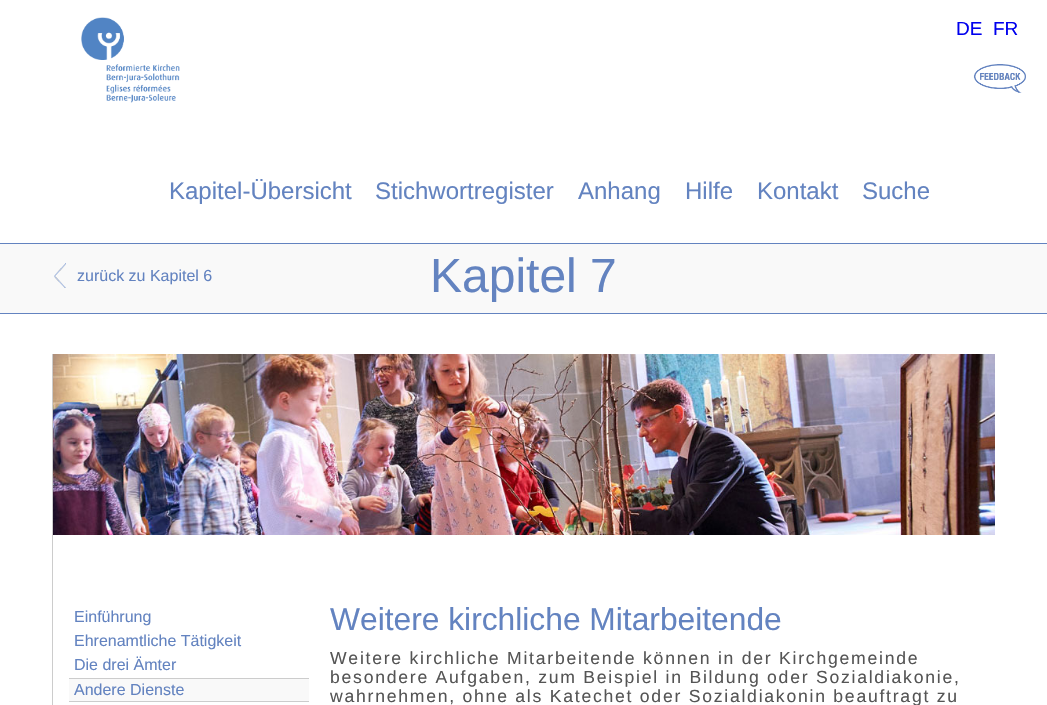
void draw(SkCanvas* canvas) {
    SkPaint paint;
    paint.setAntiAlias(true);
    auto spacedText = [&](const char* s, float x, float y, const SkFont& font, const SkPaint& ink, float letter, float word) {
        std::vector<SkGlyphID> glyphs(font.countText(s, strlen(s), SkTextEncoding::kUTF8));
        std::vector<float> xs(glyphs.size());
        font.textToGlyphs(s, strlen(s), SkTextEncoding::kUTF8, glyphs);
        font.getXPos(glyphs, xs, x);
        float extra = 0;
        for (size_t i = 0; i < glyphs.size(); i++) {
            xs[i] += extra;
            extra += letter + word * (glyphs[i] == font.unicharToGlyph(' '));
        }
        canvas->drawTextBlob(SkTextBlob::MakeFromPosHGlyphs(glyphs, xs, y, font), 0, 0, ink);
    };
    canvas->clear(0xFFFFFFFF);
    canvas->drawImageRect(SkImages::DeferredFromEncodedData(SkData::MakeFromFileName("img1.png")), SkRect::MakeXYWH(81, 17, 99, 86), SkSamplingOptions());
    SkFont font1(fontMgr->matchFamilyStyle("Liberation Sans", SkFontStyle::Normal()), 19);
    font1.setSubpixel(true);
    paint.setColor(0xFF0000EE);
    canvas->drawString("DE", 956, 35, font1, paint);
    canvas->drawString("FR", 993, 35, font1, paint);
    SkFont font2(fontMgr->matchFamilyStyle("Liberation Sans", SkFontStyle::Normal()), 24);
    font2.setSubpixel(true);
    paint.setColor(0xFF6383C0);
    canvas->drawString("Kapitel-Übersicht", 169, 199, font2, paint);
    canvas->drawString("Stichwortregister", 375, 199, font2, paint);
    canvas->drawString("Anhang", 578, 199, font2, paint);
    canvas->drawString("Hilfe", 685, 199, font2, paint);
    canvas->drawString("Kontakt", 757, 199, font2, paint);
    canvas->drawString("Suche", 862, 199, font2, paint);
    canvas->drawImageRect(SkImages::DeferredFromEncodedData(SkData::MakeFromFileName("img2.png")), SkRect::MakeXYWH(973, 64, 53, 29), SkSamplingOptions());
    paint.setColor(0xFFF9F9F9);
    canvas->drawRect(SkRect::MakeXYWH(0, 244, 1047, 69), paint);
    paint.setColor(0xFF6383C0);
    canvas->drawRect(SkRect::MakeXYWH(0, 243, 1047, 1), paint);
    canvas->drawRect(SkRect::MakeXYWH(0, 313, 1047, 1), paint);
    canvas->drawImageRect(SkImages::DeferredFromEncodedData(SkData::MakeFromFileName("img3.png")), SkRect::MakeXYWH(54, 263, 12, 25), SkSamplingOptions());
    SkFont font3(fontMgr->matchFamilyStyle("Liberation Sans", SkFontStyle::Normal()), 16);
    font3.setSubpixel(true);
    canvas->drawString("zurück zu Kapitel 6", 77, 281, font3, paint);
    SkFont font4(fontMgr->matchFamilyStyle("Liberation Sans", SkFontStyle::Normal()), 48);
    font4.setSubpixel(true);
    canvas->drawString("Kapitel 7", 430, 292, font4, paint);
    paint.setColor(0xFFCCCCCC);
    canvas->drawRect(SkRect::MakeXYWH(52, 354, 1, 351), paint);
    canvas->drawImageRect(SkImages::DeferredFromEncodedData(SkData::MakeFromFileName("img4.png")), SkRect::MakeXYWH(53, 354, 942, 181), SkSamplingOptions());
    paint.setColor(0xFF6383C0);
    canvas->drawString("Einführung", 74, 622, font3, paint);
    canvas->drawString("Ehrenamtliche Tätigkeit", 74, 646, font3, paint);
    canvas->drawString("Die drei Ämter", 74, 670, font3, paint);
    paint.setColor(0xFFF9F9F9);
    canvas->drawRect(SkRect::MakeXYWH(69, 679, 240, 22), paint);
    paint.setColor(0xFFCCCCCC);
    canvas->drawRect(SkRect::MakeXYWH(69, 678, 240, 1), paint);
    canvas->drawRect(SkRect::MakeXYWH(69, 701, 240, 1), paint);
    paint.setColor(0xFF6383C0);
    canvas->drawString("Andere Dienste", 74, 695, font3, paint);
    SkFont font5(fontMgr->matchFamilyStyle("Liberation Sans", SkFontStyle::Normal()), 31.75f);
    font5.setSubpixel(true);
    canvas->drawString("Weitere kirchliche Mitarbeitende", 330, 630, font5, paint);
    SkFont font6(fontMgr->matchFamilyStyle("Liberation Sans", SkFontStyle::Normal()), 17.6f);
    font6.setSubpixel(true);
    paint.setColor(0xFF555555);
    spacedText("Weitere kirchliche Mitarbeitende können in der Kirchgemeinde", 330, 664, font6, paint, 1.75f, 0);
    spacedText("besondere Aufgaben, zum Beispiel in Bildung oder Sozialdiakonie,", 330, 683, font6, paint, 1.75f, 0);
    spacedText("wahrnehmen, ohne als Katechet oder Sozialdiakonin beauftragt zu", 330, 702, font6, paint, 1.75f, 0);
}
